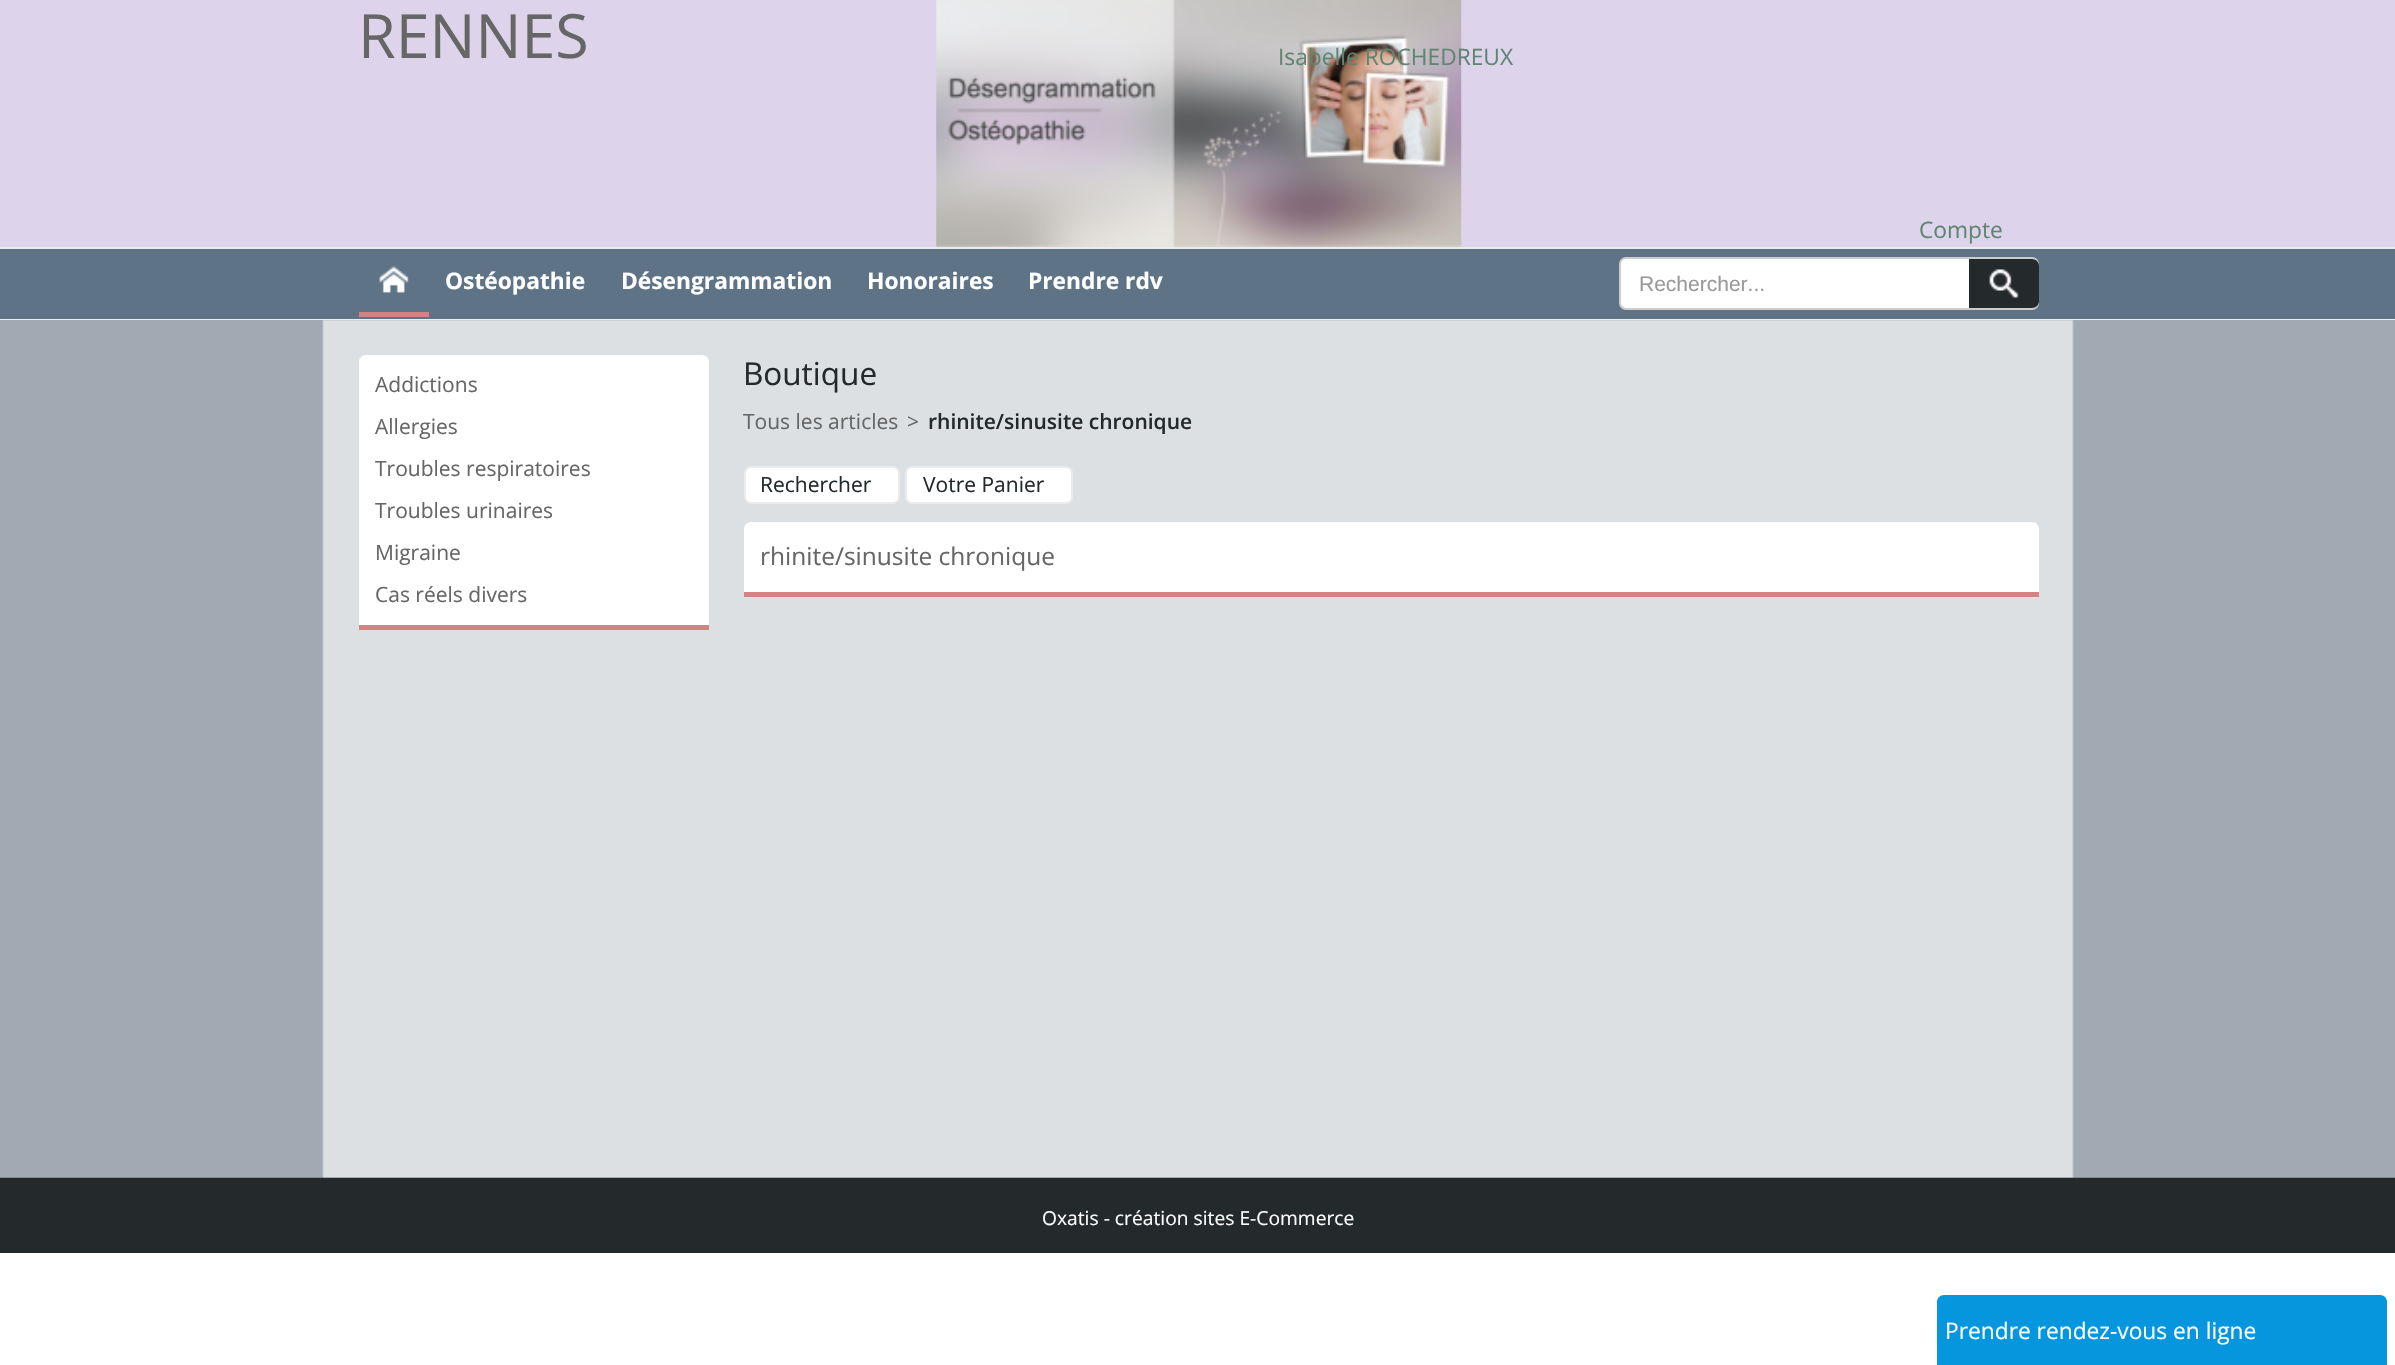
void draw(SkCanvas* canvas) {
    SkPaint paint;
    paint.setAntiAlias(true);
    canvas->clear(0xFFFFFFFF);
    paint.setColor(0xFF5E7385);
    canvas->drawRect(SkRect::MakeXYWH(0, 249, 2395, 70), paint);
    paint.setColor(0xFFEEEEEE);
    canvas->drawRect(SkRect::MakeXYWH(0, 319, 2395, 1), paint);
    paint.setColor(0xFFDDD3EB);
    canvas->drawRect(SkRect::MakeXYWH(0, 0, 2395, 247), paint);
    canvas->drawImageRect(SkImages::DeferredFromEncodedData(SkData::MakeFromFileName("img1.png")), SkRect::MakeXYWH(936, 0, 526, 247), SkSamplingOptions());
    paint.setColor(0xFFEBEBEB);
    canvas->drawRect(SkRect::MakeXYWH(0, 247, 2395, 2), paint);
    SkFont font1(fontMgr->matchFamilyStyle("Open Sans", SkFontStyle::Normal()), 61);
    font1.setSubpixel(true);
    paint.setColor(0xFF666666);
    canvas->drawString("RENNES", 358, 58, font1, paint);
    SkFont font2(fontMgr->matchFamilyStyle("Open Sans", SkFontStyle::Bold()), 22.75f);
    font2.setSubpixel(true);
    paint.setColor(0xFFFFFFFF);
    canvas->drawString("Ostéopathie", 445, 289, font2, paint);
    canvas->drawString("Désengrammation", 621, 289, font2, paint);
    canvas->drawString("Honoraires", 867, 289, font2, paint);
    canvas->drawString("Prendre rdv", 1028, 289, font2, paint);
    SkFont font3(fontMgr->matchFamilyStyle("Open Sans", SkFontStyle::Normal()), 22.75f);
    font3.setSubpixel(true);
    paint.setColor(0xFF5F8571);
    canvas->drawString("Isabelle ROCHEDREUX", 1278, 65, font3, paint);
    canvas->drawString("Compte", 1919, 238, font3, paint);
    canvas->drawImageRect(SkImages::DeferredFromEncodedData(SkData::MakeFromFileName("img2.png")), SkRect::MakeXYWH(379, 265, 30, 28), SkSamplingOptions());
    paint.setColor(0xFFD48383);
    canvas->drawRect(SkRect::MakeXYWH(359, 312, 70, 5), paint);
    paint.setColor(0xFFFFFFFF);
    canvas->drawRoundRect(SkRect::MakeXYWH(1620, 258, 418, 51), 6, 6, paint);
    paint.setStyle(SkPaint::kStroke_Style);
    paint.setStrokeWidth(2);
    paint.setColor(0xFFCCCCCC);
    canvas->drawRoundRect(SkRect::MakeXYWH(1620, 258, 418, 51), 6, 6, paint);
    SkFont font4(fontMgr->matchFamilyStyle("Liberation Sans", SkFontStyle::Normal()), 21);
    font4.setSubpixel(true);
    paint.setStyle(SkPaint::kFill_Style);
    paint.setColor(0xFF999999);
    canvas->drawString("Rechercher...", 1639, 291, font4, paint);
    paint.setColor(0xFF24292B);
    canvas->drawPath(SkPathBuilder().moveTo(1969, 259).lineTo(2032, 259).cubicTo(2036, 259, 2039, 262, 2039, 266).lineTo(2039, 301).cubicTo(2039, 305, 2036, 308, 2032, 308).lineTo(1969, 308).close().detach(), paint);
    canvas->drawImageRect(SkImages::DeferredFromEncodedData(SkData::MakeFromFileName("img3.png")), SkRect::MakeXYWH(1989, 269, 30, 29), SkSamplingOptions());
    paint.setColor(0xFFA1A9B3);
    canvas->drawRect(SkRect::MakeXYWH(0, 320, 2395, 858), paint);
    canvas->drawImageRect(SkImages::DeferredFromEncodedData(SkData::MakeFromFileName("img4.png")), SkRect::MakeXYWH(322, 320, 1752, 858), SkSamplingOptions());
    paint.setColor(0xFFFFFFFF);
    canvas->drawPath(SkPathBuilder().moveTo(366, 355).lineTo(702, 355).cubicTo(706, 355, 709, 358, 709, 362).lineTo(709, 630).lineTo(359, 630).lineTo(359, 362).cubicTo(359, 358, 362, 355, 366, 355).close().detach(), paint);
    paint.setColor(0xFFD48383);
    canvas->drawRect(SkRect::MakeXYWH(359, 625, 350, 5), paint);
    SkFont font5(fontMgr->matchFamilyStyle("Open Sans", SkFontStyle::Normal()), 21);
    font5.setSubpixel(true);
    paint.setColor(0xFF666666);
    canvas->drawString("Addictions", 375, 392, font5, paint);
    canvas->drawString("Allergies", 375, 434, font5, paint);
    canvas->drawString("Troubles respiratoires", 375, 476, font5, paint);
    canvas->drawString("Troubles urinaires", 375, 518, font5, paint);
    canvas->drawString("Migraine", 375, 560, font5, paint);
    canvas->drawString("Cas réels divers", 375, 602, font5, paint);
    SkFont font6(fontMgr->matchFamilyStyle("Open Sans", SkFontStyle::Normal()), 31.5f);
    font6.setSubpixel(true);
    paint.setColor(0xFF24292B);
    canvas->drawString("Boutique", 743, 385, font6, paint);
    paint.setColor(0xFF666666);
    canvas->drawString("Tous les articles", 743, 429, font5, paint);
    canvas->drawString(">", 907, 429, font5, paint);
    SkFont font7(fontMgr->matchFamilyStyle("Open Sans", SkFontStyle(600, SkFontStyle::kNormal_Width, SkFontStyle::kUpright_Slant)), 21);
    font7.setSubpixel(true);
    paint.setColor(0xFF24292B);
    canvas->drawString("rhinite/sinusite chronique", 928, 429, font7, paint);
    paint.setColor(0xFFFFFFFF);
    canvas->drawRoundRect(SkRect::MakeXYWH(745, 467, 154, 36), 6, 6, paint);
    paint.setStyle(SkPaint::kStroke_Style);
    paint.setColor(0xFFEBEBEB);
    canvas->drawRoundRect(SkRect::MakeXYWH(745, 467, 154, 36), 6, 6, paint);
    paint.setStyle(SkPaint::kFill_Style);
    paint.setColor(0xFF24292B);
    canvas->drawString("Rechercher", 760, 492, font5, paint);
    paint.setColor(0xFFFFFFFF);
    canvas->drawRoundRect(SkRect::MakeXYWH(906, 467, 166, 36), 6, 6, paint);
    paint.setStyle(SkPaint::kStroke_Style);
    paint.setColor(0xFFEBEBEB);
    canvas->drawRoundRect(SkRect::MakeXYWH(906, 467, 166, 36), 6, 6, paint);
    paint.setStyle(SkPaint::kFill_Style);
    paint.setColor(0xFF24292B);
    canvas->drawString("Votre Panier", 923, 492, font5, paint);
    paint.setColor(0xFFFFFFFF);
    canvas->drawPath(SkPathBuilder().moveTo(751, 522).lineTo(2032, 522).cubicTo(2036, 522, 2039, 525, 2039, 529).lineTo(2039, 597).lineTo(744, 597).lineTo(744, 529).cubicTo(744, 525, 747, 522, 751, 522).close().detach(), paint);
    paint.setColor(0xFFD48383);
    canvas->drawRect(SkRect::MakeXYWH(744, 592, 1295, 5), paint);
    SkFont font8(fontMgr->matchFamilyStyle("Open Sans", SkFontStyle::Normal()), 24.5f);
    font8.setSubpixel(true);
    paint.setColor(0xFF666666);
    canvas->drawString("rhinite/sinusite chronique", 760, 565, font8, paint);
    canvas->drawImageRect(SkImages::DeferredFromEncodedData(SkData::MakeFromFileName("img5.png")), SkRect::MakeXYWH(0, 1177, 2395, 1), SkSamplingOptions());
    paint.setColor(0xFF24292B);
    canvas->drawRect(SkRect::MakeXYWH(0, 1178, 2395, 75), paint);
    SkFont font9(fontMgr->matchFamilyStyle("Open Sans", SkFontStyle::Normal()), 19.25f);
    font9.setSubpixel(true);
    paint.setColor(0xFFFFFFFF);
    canvas->drawString("Oxatis - création sites E-Commerce", 1042, 1225, font9, paint);
    paint.setColor(0xFF0596DE);
    canvas->drawPath(SkPathBuilder().moveTo(1944, 1295).lineTo(2380, 1295).cubicTo(2384, 1295, 2387, 1298, 2387, 1302).lineTo(2387, 1365).lineTo(1937, 1365).lineTo(1937, 1302).cubicTo(1937, 1298, 1940, 1295, 1944, 1295).close().detach(), paint);
    paint.setColor(0xFFFFFFFF);
    canvas->drawString("Prendre rendez-vous en ligne", 1945, 1339, font3, paint);
}
